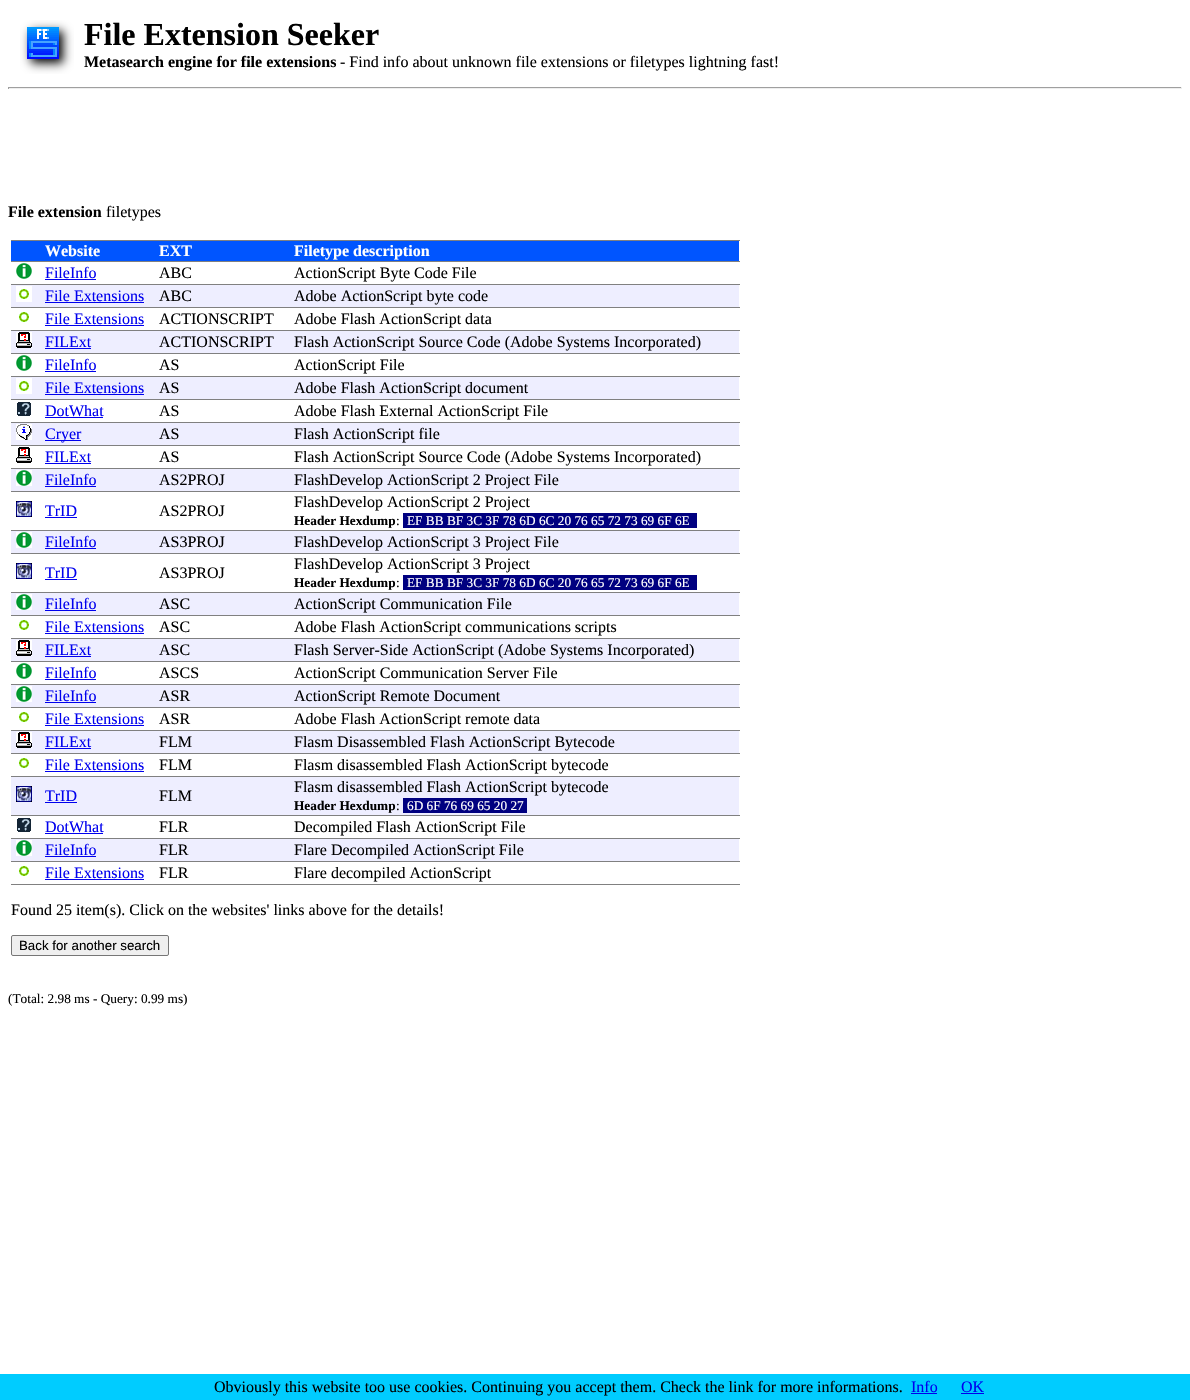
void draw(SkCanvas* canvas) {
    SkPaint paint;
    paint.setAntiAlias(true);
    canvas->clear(0xFFFFFFFF);
    canvas->drawImageRect(SkImages::DeferredFromEncodedData(SkData::MakeFromFileName("img1.png")), SkRect::MakeXYWH(20, 20, 54, 54), SkSamplingOptions());
    SkFont font1(fontMgr->matchFamilyStyle("Liberation Serif", SkFontStyle::Bold()), 32);
    font1.setSubpixel(true);
    paint.setColor(0xFF000000);
    canvas->drawString("File Extension Seeker", 84, 45, font1, paint);
    SkFont font2(fontMgr->matchFamilyStyle("Liberation Serif", SkFontStyle::Bold()), 16);
    font2.setSubpixel(true);
    canvas->drawString("Metasearch engine for file extensions", 84, 67, font2, paint);
    SkFont font3(fontMgr->matchFamilyStyle("Liberation Serif", SkFontStyle::Normal()), 16);
    font3.setSubpixel(true);
    canvas->drawString("- Find info about unknown file extensions or filetypes lightning fast!", 340, 67, font3, paint);
    paint.setColor(0xFF9F9F9F);
    canvas->drawRect(SkRect::MakeXYWH(8, 87, 1174, 1), paint);
    paint.setColor(0xFFEEEEEE);
    canvas->drawRect(SkRect::MakeXYWH(1181, 87, 1, 2), paint);
    canvas->drawRect(SkRect::MakeXYWH(8, 88, 1174, 1), paint);
    paint.setColor(0xFF9F9F9F);
    canvas->drawRect(SkRect::MakeXYWH(8, 87, 1, 2), paint);
    paint.setColor(0xFF000000);
    canvas->drawString("File extension", 8, 217, font2, paint);
    canvas->drawString("filetypes", 106, 217, font3, paint);
    paint.setColor(0xFF808080);
    canvas->drawRect(SkRect::MakeXYWH(11, 240, 729, 1), paint);
    canvas->drawRect(SkRect::MakeXYWH(11, 884, 729, 1), paint);
    paint.setColor(0xFF0055FF);
    canvas->drawRect(SkRect::MakeXYWH(11, 241, 728, 20), paint);
    paint.setColor(0xFFFFFFFF);
    canvas->drawString("Website", 45, 256, font2, paint);
    canvas->drawString("EXT", 159, 256, font2, paint);
    canvas->drawString("Filetype description", 294, 256, font2, paint);
    canvas->drawImageRect(SkImages::DeferredFromEncodedData(SkData::MakeFromFileName("img2.png")), SkRect::MakeXYWH(16, 263, 16, 16), SkSamplingOptions());
    paint.setColor(0xFF0000EE);
    canvas->drawString("FileInfo", 45, 278, font3, paint);
    canvas->drawRect(SkRect::MakeXYWH(45, 279, 51, 1), paint);
    paint.setColor(0xFF000000);
    canvas->drawString("ABC", 159, 278, font3, paint);
    paint.setColor(0xFF808080);
    canvas->drawRect(SkRect::MakeXYWH(11, 261, 729, 1), paint);
    paint.setColor(0xFF000000);
    canvas->drawString("ActionScript Byte Code File", 294, 278, font3, paint);
    paint.setColor(0xFFEEEEFF);
    canvas->drawRect(SkRect::MakeXYWH(11, 285, 728, 22), paint);
    canvas->drawImageRect(SkImages::DeferredFromEncodedData(SkData::MakeFromFileName("img3.png")), SkRect::MakeXYWH(16, 286, 16, 16), SkSamplingOptions());
    paint.setColor(0xFF0000EE);
    canvas->drawString("File Extensions", 45, 301, font3, paint);
    canvas->drawRect(SkRect::MakeXYWH(45, 302, 99, 1), paint);
    paint.setColor(0xFF000000);
    canvas->drawString("ABC", 159, 301, font3, paint);
    paint.setColor(0xFF808080);
    canvas->drawRect(SkRect::MakeXYWH(11, 284, 729, 1), paint);
    paint.setColor(0xFF000000);
    canvas->drawString("Adobe ActionScript byte code", 294, 301, font3, paint);
    canvas->drawImageRect(SkImages::DeferredFromEncodedData(SkData::MakeFromFileName("img4.png")), SkRect::MakeXYWH(19, 312, 10, 10), SkSamplingOptions());
    paint.setColor(0xFF0000EE);
    canvas->drawString("File Extensions", 45, 324, font3, paint);
    canvas->drawRect(SkRect::MakeXYWH(45, 325, 99, 1), paint);
    paint.setColor(0xFF000000);
    canvas->drawString("ACTIONSCRIPT", 159, 324, font3, paint);
    paint.setColor(0xFF808080);
    canvas->drawRect(SkRect::MakeXYWH(11, 307, 729, 1), paint);
    paint.setColor(0xFF000000);
    canvas->drawString("Adobe Flash ActionScript data", 294, 324, font3, paint);
    paint.setColor(0xFFEEEEFF);
    canvas->drawRect(SkRect::MakeXYWH(11, 331, 728, 22), paint);
    canvas->drawImageRect(SkImages::DeferredFromEncodedData(SkData::MakeFromFileName("img5.png")), SkRect::MakeXYWH(16, 332, 16, 16), SkSamplingOptions());
    paint.setColor(0xFF0000EE);
    canvas->drawString("FILExt", 45, 347, font3, paint);
    canvas->drawRect(SkRect::MakeXYWH(45, 348, 46, 1), paint);
    paint.setColor(0xFF000000);
    canvas->drawString("ACTIONSCRIPT", 159, 347, font3, paint);
    paint.setColor(0xFF808080);
    canvas->drawRect(SkRect::MakeXYWH(11, 330, 729, 1), paint);
    paint.setColor(0xFF000000);
    canvas->drawString("Flash ActionScript Source Code (Adobe Systems Incorporated)", 294, 347, font3, paint);
    canvas->drawImageRect(SkImages::DeferredFromEncodedData(SkData::MakeFromFileName("img2.png")), SkRect::MakeXYWH(16, 355, 16, 16), SkSamplingOptions());
    paint.setColor(0xFF0000EE);
    canvas->drawString("FileInfo", 45, 370, font3, paint);
    canvas->drawRect(SkRect::MakeXYWH(45, 371, 51, 1), paint);
    paint.setColor(0xFF000000);
    canvas->drawString("AS", 159, 370, font3, paint);
    paint.setColor(0xFF808080);
    canvas->drawRect(SkRect::MakeXYWH(11, 353, 729, 1), paint);
    paint.setColor(0xFF000000);
    canvas->drawString("ActionScript File", 294, 370, font3, paint);
    paint.setColor(0xFFEEEEFF);
    canvas->drawRect(SkRect::MakeXYWH(11, 377, 728, 22), paint);
    canvas->drawImageRect(SkImages::DeferredFromEncodedData(SkData::MakeFromFileName("img3.png")), SkRect::MakeXYWH(16, 378, 16, 16), SkSamplingOptions());
    paint.setColor(0xFF0000EE);
    canvas->drawString("File Extensions", 45, 393, font3, paint);
    canvas->drawRect(SkRect::MakeXYWH(45, 394, 99, 1), paint);
    paint.setColor(0xFF000000);
    canvas->drawString("AS", 159, 393, font3, paint);
    paint.setColor(0xFF808080);
    canvas->drawRect(SkRect::MakeXYWH(11, 376, 729, 1), paint);
    paint.setColor(0xFF000000);
    canvas->drawString("Adobe Flash ActionScript document", 294, 393, font3, paint);
    canvas->drawImageRect(SkImages::DeferredFromEncodedData(SkData::MakeFromFileName("img6.png")), SkRect::MakeXYWH(17, 402, 14, 14), SkSamplingOptions());
    paint.setColor(0xFF0000EE);
    canvas->drawString("DotWhat", 45, 416, font3, paint);
    canvas->drawRect(SkRect::MakeXYWH(45, 417, 58, 1), paint);
    paint.setColor(0xFF000000);
    canvas->drawString("AS", 159, 416, font3, paint);
    paint.setColor(0xFF808080);
    canvas->drawRect(SkRect::MakeXYWH(11, 399, 729, 1), paint);
    paint.setColor(0xFF000000);
    canvas->drawString("Adobe Flash External ActionScript File", 294, 416, font3, paint);
    paint.setColor(0xFFEEEEFF);
    canvas->drawRect(SkRect::MakeXYWH(11, 423, 728, 22), paint);
    canvas->drawImageRect(SkImages::DeferredFromEncodedData(SkData::MakeFromFileName("img7.png")), SkRect::MakeXYWH(16, 424, 16, 16), SkSamplingOptions());
    paint.setColor(0xFF0000EE);
    canvas->drawRect(SkRect::MakeXYWH(45, 440, 36, 1), paint);
    canvas->drawString("Cryer", 45, 439, font3, paint);
    paint.setColor(0xFF000000);
    canvas->drawString("AS", 159, 439, font3, paint);
    paint.setColor(0xFF808080);
    canvas->drawRect(SkRect::MakeXYWH(11, 422, 729, 1), paint);
    paint.setColor(0xFF000000);
    canvas->drawString("Flash ActionScript file", 294, 439, font3, paint);
    canvas->drawImageRect(SkImages::DeferredFromEncodedData(SkData::MakeFromFileName("img5.png")), SkRect::MakeXYWH(16, 447, 16, 16), SkSamplingOptions());
    paint.setColor(0xFF0000EE);
    canvas->drawString("FILExt", 45, 462, font3, paint);
    canvas->drawRect(SkRect::MakeXYWH(45, 463, 46, 1), paint);
    paint.setColor(0xFF000000);
    canvas->drawString("AS", 159, 462, font3, paint);
    paint.setColor(0xFF808080);
    canvas->drawRect(SkRect::MakeXYWH(11, 445, 729, 1), paint);
    paint.setColor(0xFF000000);
    canvas->drawString("Flash ActionScript Source Code (Adobe Systems Incorporated)", 294, 462, font3, paint);
    paint.setColor(0xFFEEEEFF);
    canvas->drawRect(SkRect::MakeXYWH(11, 469, 728, 22), paint);
    canvas->drawImageRect(SkImages::DeferredFromEncodedData(SkData::MakeFromFileName("img2.png")), SkRect::MakeXYWH(16, 470, 16, 16), SkSamplingOptions());
    paint.setColor(0xFF0000EE);
    canvas->drawString("FileInfo", 45, 485, font3, paint);
    canvas->drawRect(SkRect::MakeXYWH(45, 486, 51, 1), paint);
    paint.setColor(0xFF000000);
    canvas->drawString("AS2PROJ", 159, 485, font3, paint);
    paint.setColor(0xFF808080);
    canvas->drawRect(SkRect::MakeXYWH(11, 468, 729, 1), paint);
    paint.setColor(0xFF000000);
    canvas->drawString("FlashDevelop ActionScript 2 Project File", 294, 485, font3, paint);
    canvas->drawImageRect(SkImages::DeferredFromEncodedData(SkData::MakeFromFileName("img8.png")), SkRect::MakeXYWH(16, 501, 16, 16), SkSamplingOptions());
    paint.setColor(0xFF0000EE);
    canvas->drawString("TrID", 45, 516, font3, paint);
    canvas->drawRect(SkRect::MakeXYWH(45, 517, 32, 1), paint);
    paint.setColor(0xFF000000);
    canvas->drawString("AS2PROJ", 159, 516, font3, paint);
    paint.setColor(0xFF808080);
    canvas->drawRect(SkRect::MakeXYWH(11, 491, 729, 1), paint);
    paint.setColor(0xFF000000);
    canvas->drawString("FlashDevelop ActionScript 2 Project", 294, 507, font3, paint);
    SkFont font4(fontMgr->matchFamilyStyle("Liberation Serif", SkFontStyle::Bold()), 13.3f);
    font4.setSubpixel(true);
    canvas->drawString("Header Hexdump", 294, 525, font4, paint);
    SkFont font5(fontMgr->matchFamilyStyle("Liberation Serif", SkFontStyle::Normal()), 13.3f);
    font5.setSubpixel(true);
    canvas->drawString(":", 396, 525, font5, paint);
    paint.setColor(0xFF000080);
    canvas->drawRect(SkRect::MakeXYWH(403, 513, 294, 15), paint);
    paint.setColor(0xFFFFFFFF);
    canvas->drawString("EF BB BF 3C 3F 78 6D 6C 20 76 65 72 73 69 6F 6E", 407, 525, font5, paint);
    paint.setColor(0xFFEEEEFF);
    canvas->drawRect(SkRect::MakeXYWH(11, 531, 728, 22), paint);
    canvas->drawImageRect(SkImages::DeferredFromEncodedData(SkData::MakeFromFileName("img2.png")), SkRect::MakeXYWH(16, 532, 16, 16), SkSamplingOptions());
    paint.setColor(0xFF0000EE);
    canvas->drawString("FileInfo", 45, 547, font3, paint);
    canvas->drawRect(SkRect::MakeXYWH(45, 548, 51, 1), paint);
    paint.setColor(0xFF000000);
    canvas->drawString("AS3PROJ", 159, 547, font3, paint);
    paint.setColor(0xFF808080);
    canvas->drawRect(SkRect::MakeXYWH(11, 530, 729, 1), paint);
    paint.setColor(0xFF000000);
    canvas->drawString("FlashDevelop ActionScript 3 Project File", 294, 547, font3, paint);
    canvas->drawImageRect(SkImages::DeferredFromEncodedData(SkData::MakeFromFileName("img8.png")), SkRect::MakeXYWH(16, 563, 16, 16), SkSamplingOptions());
    paint.setColor(0xFF0000EE);
    canvas->drawString("TrID", 45, 578, font3, paint);
    canvas->drawRect(SkRect::MakeXYWH(45, 579, 32, 1), paint);
    paint.setColor(0xFF000000);
    canvas->drawString("AS3PROJ", 159, 578, font3, paint);
    paint.setColor(0xFF808080);
    canvas->drawRect(SkRect::MakeXYWH(11, 553, 729, 1), paint);
    paint.setColor(0xFF000000);
    canvas->drawString("FlashDevelop ActionScript 3 Project", 294, 569, font3, paint);
    canvas->drawString("Header Hexdump", 294, 587, font4, paint);
    canvas->drawString(":", 396, 587, font5, paint);
    paint.setColor(0xFF000080);
    canvas->drawRect(SkRect::MakeXYWH(403, 575, 294, 15), paint);
    paint.setColor(0xFFFFFFFF);
    canvas->drawString("EF BB BF 3C 3F 78 6D 6C 20 76 65 72 73 69 6F 6E", 407, 587, font5, paint);
    paint.setColor(0xFFEEEEFF);
    canvas->drawRect(SkRect::MakeXYWH(11, 593, 728, 22), paint);
    canvas->drawImageRect(SkImages::DeferredFromEncodedData(SkData::MakeFromFileName("img2.png")), SkRect::MakeXYWH(16, 594, 16, 16), SkSamplingOptions());
    paint.setColor(0xFF0000EE);
    canvas->drawString("FileInfo", 45, 609, font3, paint);
    canvas->drawRect(SkRect::MakeXYWH(45, 610, 51, 1), paint);
    paint.setColor(0xFF000000);
    canvas->drawString("ASC", 159, 609, font3, paint);
    paint.setColor(0xFF808080);
    canvas->drawRect(SkRect::MakeXYWH(11, 592, 729, 1), paint);
    paint.setColor(0xFF000000);
    canvas->drawString("ActionScript Communication File", 294, 609, font3, paint);
    canvas->drawImageRect(SkImages::DeferredFromEncodedData(SkData::MakeFromFileName("img4.png")), SkRect::MakeXYWH(19, 620, 10, 10), SkSamplingOptions());
    paint.setColor(0xFF0000EE);
    canvas->drawString("File Extensions", 45, 632, font3, paint);
    canvas->drawRect(SkRect::MakeXYWH(45, 633, 99, 1), paint);
    paint.setColor(0xFF000000);
    canvas->drawString("ASC", 159, 632, font3, paint);
    paint.setColor(0xFF808080);
    canvas->drawRect(SkRect::MakeXYWH(11, 615, 729, 1), paint);
    paint.setColor(0xFF000000);
    canvas->drawString("Adobe Flash ActionScript communications scripts", 294, 632, font3, paint);
    paint.setColor(0xFFEEEEFF);
    canvas->drawRect(SkRect::MakeXYWH(11, 639, 728, 22), paint);
    canvas->drawImageRect(SkImages::DeferredFromEncodedData(SkData::MakeFromFileName("img5.png")), SkRect::MakeXYWH(16, 640, 16, 16), SkSamplingOptions());
    paint.setColor(0xFF0000EE);
    canvas->drawString("FILExt", 45, 655, font3, paint);
    canvas->drawRect(SkRect::MakeXYWH(45, 656, 46, 1), paint);
    paint.setColor(0xFF000000);
    canvas->drawString("ASC", 159, 655, font3, paint);
    paint.setColor(0xFF808080);
    canvas->drawRect(SkRect::MakeXYWH(11, 638, 729, 1), paint);
    paint.setColor(0xFF000000);
    canvas->drawString("Flash Server-Side ActionScript (Adobe Systems Incorporated)", 294, 655, font3, paint);
    canvas->drawImageRect(SkImages::DeferredFromEncodedData(SkData::MakeFromFileName("img2.png")), SkRect::MakeXYWH(16, 663, 16, 16), SkSamplingOptions());
    paint.setColor(0xFF0000EE);
    canvas->drawString("FileInfo", 45, 678, font3, paint);
    canvas->drawRect(SkRect::MakeXYWH(45, 679, 51, 1), paint);
    paint.setColor(0xFF000000);
    canvas->drawString("ASCS", 159, 678, font3, paint);
    paint.setColor(0xFF808080);
    canvas->drawRect(SkRect::MakeXYWH(11, 661, 729, 1), paint);
    paint.setColor(0xFF000000);
    canvas->drawString("ActionScript Communication Server File", 294, 678, font3, paint);
    paint.setColor(0xFFEEEEFF);
    canvas->drawRect(SkRect::MakeXYWH(11, 685, 728, 22), paint);
    canvas->drawImageRect(SkImages::DeferredFromEncodedData(SkData::MakeFromFileName("img2.png")), SkRect::MakeXYWH(16, 686, 16, 16), SkSamplingOptions());
    paint.setColor(0xFF0000EE);
    canvas->drawString("FileInfo", 45, 701, font3, paint);
    canvas->drawRect(SkRect::MakeXYWH(45, 702, 51, 1), paint);
    paint.setColor(0xFF000000);
    canvas->drawString("ASR", 159, 701, font3, paint);
    paint.setColor(0xFF808080);
    canvas->drawRect(SkRect::MakeXYWH(11, 684, 729, 1), paint);
    paint.setColor(0xFF000000);
    canvas->drawString("ActionScript Remote Document", 294, 701, font3, paint);
    canvas->drawImageRect(SkImages::DeferredFromEncodedData(SkData::MakeFromFileName("img4.png")), SkRect::MakeXYWH(19, 712, 10, 10), SkSamplingOptions());
    paint.setColor(0xFF0000EE);
    canvas->drawString("File Extensions", 45, 724, font3, paint);
    canvas->drawRect(SkRect::MakeXYWH(45, 725, 99, 1), paint);
    paint.setColor(0xFF000000);
    canvas->drawString("ASR", 159, 724, font3, paint);
    paint.setColor(0xFF808080);
    canvas->drawRect(SkRect::MakeXYWH(11, 707, 729, 1), paint);
    paint.setColor(0xFF000000);
    canvas->drawString("Adobe Flash ActionScript remote data", 294, 724, font3, paint);
    paint.setColor(0xFFEEEEFF);
    canvas->drawRect(SkRect::MakeXYWH(11, 731, 728, 22), paint);
    canvas->drawImageRect(SkImages::DeferredFromEncodedData(SkData::MakeFromFileName("img5.png")), SkRect::MakeXYWH(16, 732, 16, 16), SkSamplingOptions());
    paint.setColor(0xFF0000EE);
    canvas->drawString("FILExt", 45, 747, font3, paint);
    canvas->drawRect(SkRect::MakeXYWH(45, 748, 46, 1), paint);
    paint.setColor(0xFF000000);
    canvas->drawString("FLM", 159, 747, font3, paint);
    paint.setColor(0xFF808080);
    canvas->drawRect(SkRect::MakeXYWH(11, 730, 729, 1), paint);
    paint.setColor(0xFF000000);
    canvas->drawString("Flasm Disassembled Flash ActionScript Bytecode", 294, 747, font3, paint);
    canvas->drawImageRect(SkImages::DeferredFromEncodedData(SkData::MakeFromFileName("img4.png")), SkRect::MakeXYWH(19, 758, 10, 10), SkSamplingOptions());
    paint.setColor(0xFF0000EE);
    canvas->drawString("File Extensions", 45, 770, font3, paint);
    canvas->drawRect(SkRect::MakeXYWH(45, 771, 99, 1), paint);
    paint.setColor(0xFF000000);
    canvas->drawString("FLM", 159, 770, font3, paint);
    paint.setColor(0xFF808080);
    canvas->drawRect(SkRect::MakeXYWH(11, 753, 729, 1), paint);
    paint.setColor(0xFF000000);
    canvas->drawString("Flasm disassembled Flash ActionScript bytecode", 294, 770, font3, paint);
    paint.setColor(0xFFEEEEFF);
    canvas->drawRect(SkRect::MakeXYWH(11, 777, 728, 38), paint);
    canvas->drawImageRect(SkImages::DeferredFromEncodedData(SkData::MakeFromFileName("img8.png")), SkRect::MakeXYWH(16, 786, 16, 16), SkSamplingOptions());
    paint.setColor(0xFF0000EE);
    canvas->drawString("TrID", 45, 801, font3, paint);
    canvas->drawRect(SkRect::MakeXYWH(45, 802, 32, 1), paint);
    paint.setColor(0xFF000000);
    canvas->drawString("FLM", 159, 801, font3, paint);
    paint.setColor(0xFF808080);
    canvas->drawRect(SkRect::MakeXYWH(11, 776, 729, 1), paint);
    paint.setColor(0xFF000000);
    canvas->drawString("Flasm disassembled Flash ActionScript bytecode", 294, 792, font3, paint);
    canvas->drawString("Header Hexdump", 294, 810, font4, paint);
    canvas->drawString(":", 396, 810, font5, paint);
    paint.setColor(0xFF000080);
    canvas->drawRect(SkRect::MakeXYWH(403, 798, 124, 15), paint);
    paint.setColor(0xFFFFFFFF);
    canvas->drawString("6D 6F 76 69 65 20 27", 407, 810, font5, paint);
    canvas->drawImageRect(SkImages::DeferredFromEncodedData(SkData::MakeFromFileName("img6.png")), SkRect::MakeXYWH(17, 818, 14, 14), SkSamplingOptions());
    paint.setColor(0xFF0000EE);
    canvas->drawString("DotWhat", 45, 832, font3, paint);
    canvas->drawRect(SkRect::MakeXYWH(45, 833, 58, 1), paint);
    paint.setColor(0xFF000000);
    canvas->drawString("FLR", 159, 832, font3, paint);
    paint.setColor(0xFF808080);
    canvas->drawRect(SkRect::MakeXYWH(11, 815, 729, 1), paint);
    paint.setColor(0xFF000000);
    canvas->drawString("Decompiled Flash ActionScript File", 294, 832, font3, paint);
    paint.setColor(0xFFEEEEFF);
    canvas->drawRect(SkRect::MakeXYWH(11, 839, 728, 22), paint);
    canvas->drawImageRect(SkImages::DeferredFromEncodedData(SkData::MakeFromFileName("img2.png")), SkRect::MakeXYWH(16, 840, 16, 16), SkSamplingOptions());
    paint.setColor(0xFF0000EE);
    canvas->drawString("FileInfo", 45, 855, font3, paint);
    canvas->drawRect(SkRect::MakeXYWH(45, 856, 51, 1), paint);
    paint.setColor(0xFF000000);
    canvas->drawString("FLR", 159, 855, font3, paint);
    paint.setColor(0xFF808080);
    canvas->drawRect(SkRect::MakeXYWH(11, 838, 729, 1), paint);
    paint.setColor(0xFF000000);
    canvas->drawString("Flare Decompiled ActionScript File", 294, 855, font3, paint);
    canvas->drawImageRect(SkImages::DeferredFromEncodedData(SkData::MakeFromFileName("img4.png")), SkRect::MakeXYWH(19, 866, 10, 10), SkSamplingOptions());
    paint.setColor(0xFF0000EE);
    canvas->drawString("File Extensions", 45, 878, font3, paint);
    canvas->drawRect(SkRect::MakeXYWH(45, 879, 99, 1), paint);
    paint.setColor(0xFF000000);
    canvas->drawString("FLR", 159, 878, font3, paint);
    paint.setColor(0xFF808080);
    canvas->drawRect(SkRect::MakeXYWH(11, 861, 729, 1), paint);
    paint.setColor(0xFF000000);
    canvas->drawString("Flare decompiled ActionScript", 294, 878, font3, paint);
    canvas->drawString("Found 25 item(s). Click on the websites' links above for the details!", 11, 915, font3, paint);
    paint.setColor(0xFFEFEFEF);
    canvas->drawRoundRect(SkRect::MakeXYWH(11.5f, 935.5f, 157, 20), 1.5f, 1.5f, paint);
    paint.setStyle(SkPaint::kStroke_Style);
    paint.setStrokeWidth(1);
    paint.setColor(0xFF767676);
    canvas->drawRoundRect(SkRect::MakeXYWH(11.5f, 935.5f, 157, 20), 1.5f, 1.5f, paint);
    SkFont font6(fontMgr->matchFamilyStyle("Liberation Sans", SkFontStyle::Normal()), 13.3f);
    font6.setSubpixel(true);
    paint.setStyle(SkPaint::kFill_Style);
    paint.setColor(0xFF000000);
    canvas->drawString("Back for another search", 19, 950, font6, paint);
    canvas->drawString("(Total: 2.98 ms - Query: 0.99 ms)", 8, 1003, font5, paint);
    paint.setColor(0xFF00CCFF);
    canvas->drawRect(SkRect::MakeXYWH(0, 1374, 1190, 26), paint);
    paint.setColor(0xFF000000);
    canvas->drawString("Obviously this website too use cookies. Continuing you accept them. Check the link for more informations.", 214, 1392, font3, paint);
    paint.setColor(0xFF0000EE);
    canvas->drawString("Info", 911, 1392, font3, paint);
    canvas->drawRect(SkRect::MakeXYWH(911, 1393, 26, 1), paint);
    canvas->drawString("OK", 961, 1392, font3, paint);
    canvas->drawRect(SkRect::MakeXYWH(961, 1393, 23, 1), paint);
}
